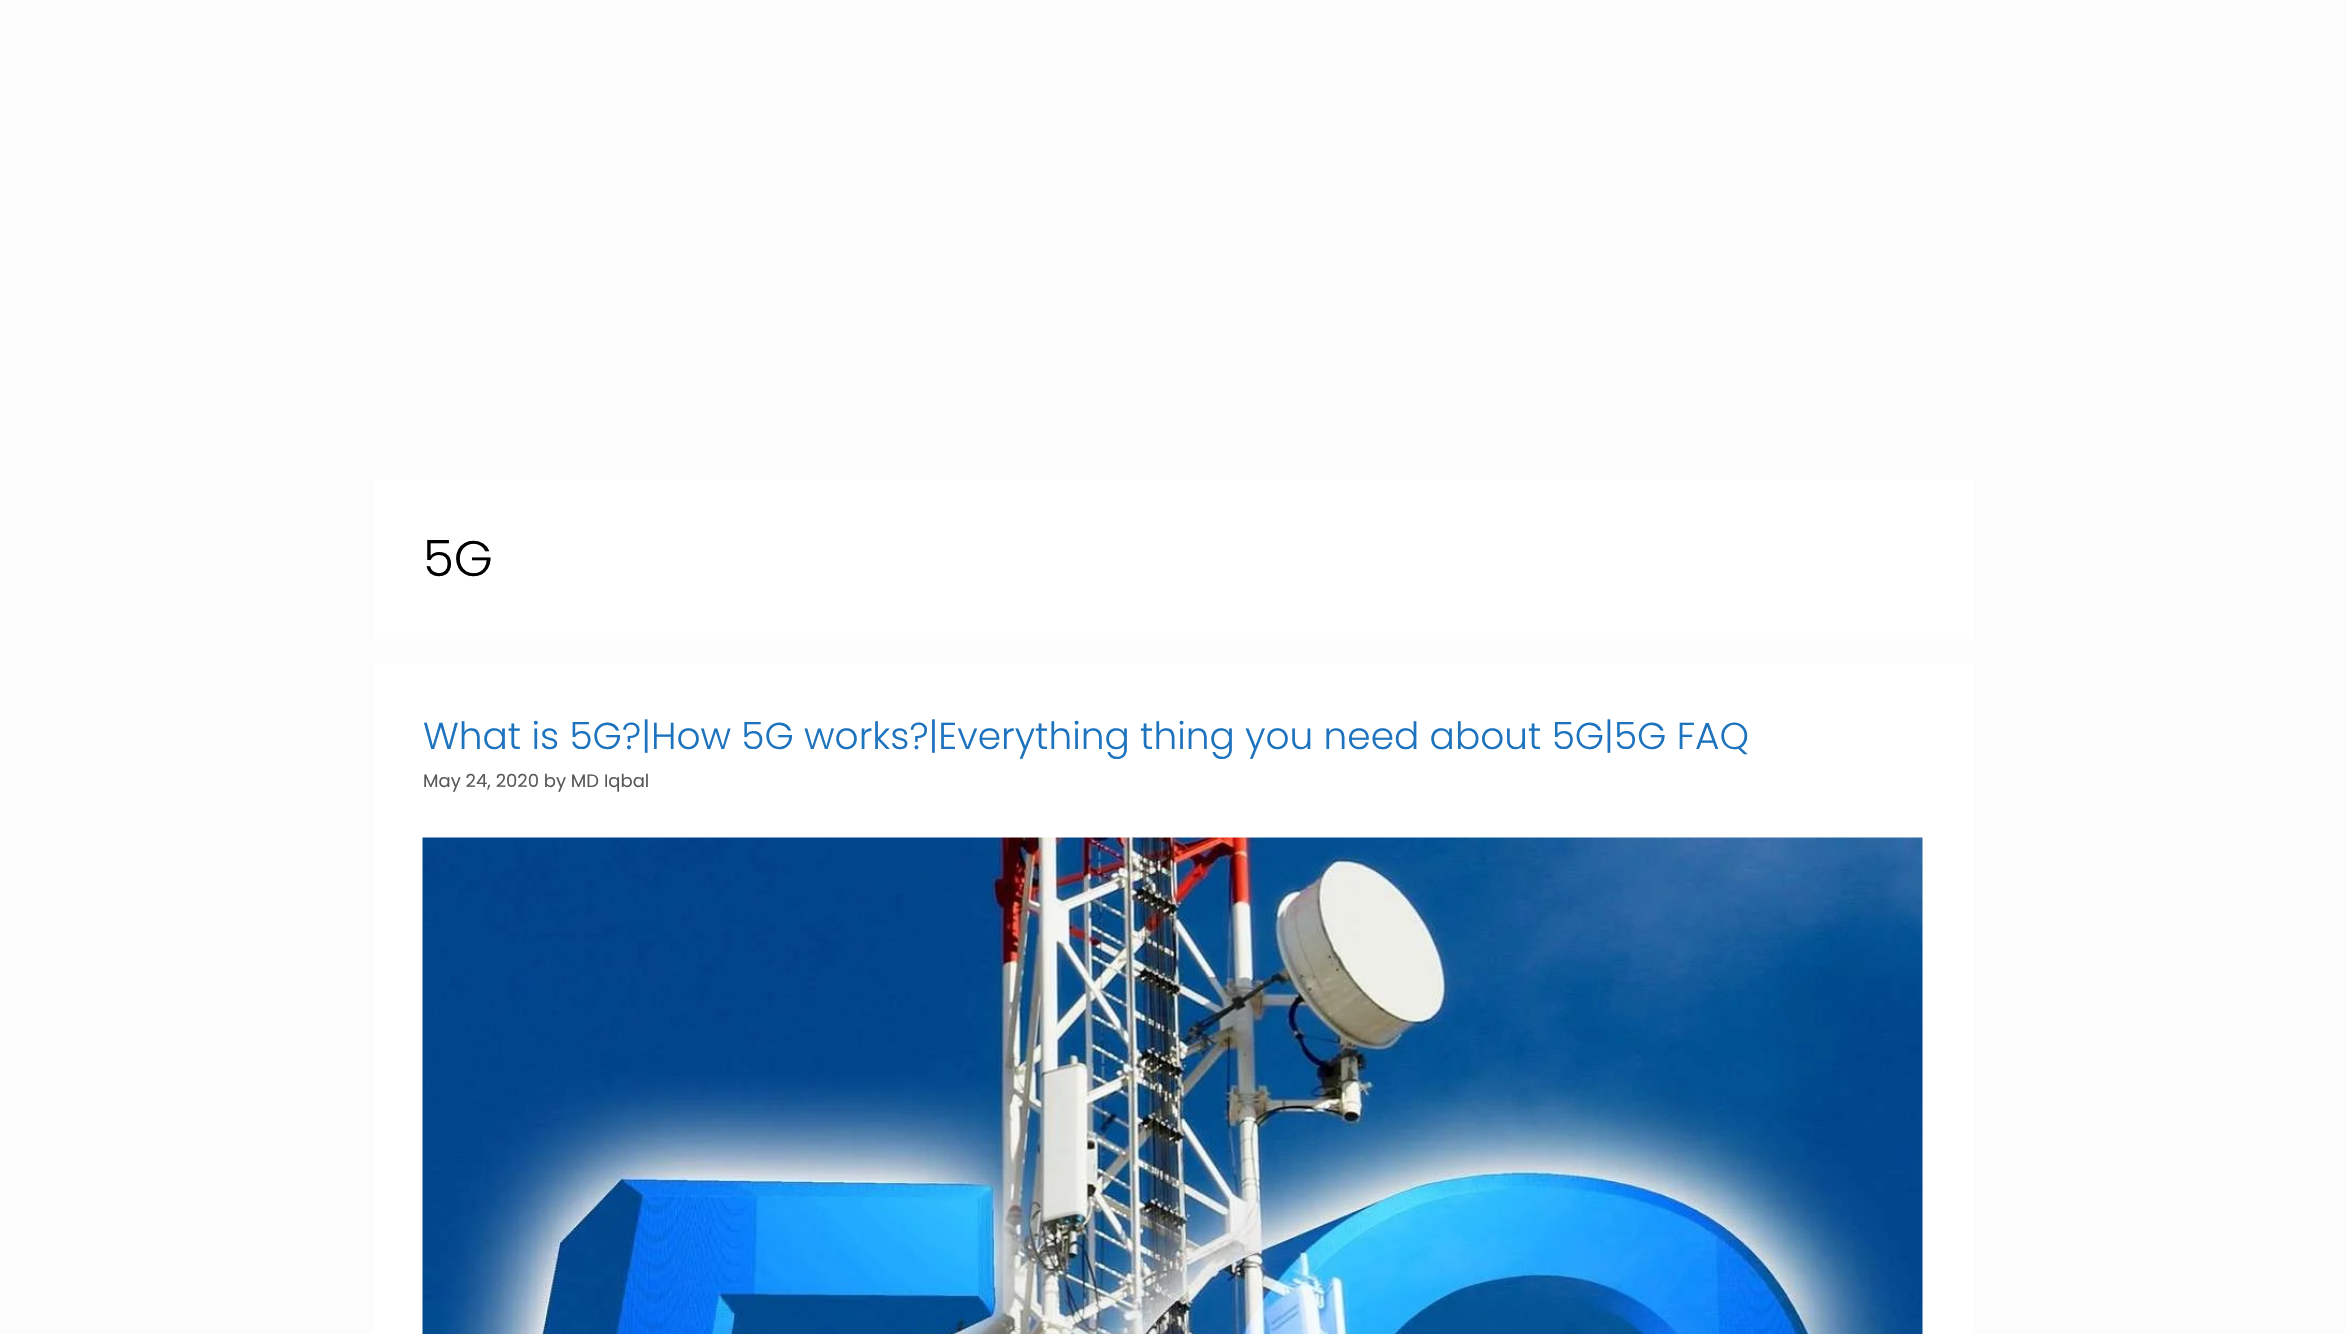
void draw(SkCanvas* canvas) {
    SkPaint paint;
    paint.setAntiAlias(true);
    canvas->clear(0xFFFCFCFC);
    paint.setColor(0xFFFFFFFF);
    canvas->drawRect(SkRect::MakeXYWH(373, 479, 1600, 160), paint);
    SkFont font1(fontMgr->matchFamilyStyle("Poppins", SkFontStyle(300, SkFontStyle::kNormal_Width, SkFontStyle::kUpright_Slant)), 50);
    font1.setSubpixel(true);
    paint.setColor(0xFF000000);
    canvas->drawString("5G", 423, 576, font1, paint);
    paint.setColor(0xFFFFFFFF);
    canvas->drawRect(SkRect::MakeXYWH(373, 664, 1600, 670), paint);
    SkFont font2(fontMgr->matchFamilyStyle("Poppins", SkFontStyle(300, SkFontStyle::kNormal_Width, SkFontStyle::kUpright_Slant)), 37.5f);
    font2.setSubpixel(true);
    paint.setColor(0xFF1E73BE);
    canvas->drawString("What is 5G?|How 5G works?|Everything thing you need about 5G|5G FAQ", 423, 749, font2, paint);
    SkFont font3(fontMgr->matchFamilyStyle("Poppins", SkFontStyle::Normal()), 18);
    font3.setSubpixel(true);
    paint.setColor(0xFF595959);
    canvas->drawString("May 24, 2020 by MD Iqbal", 423, 787, font3, paint);
    canvas->drawImageRect(SkImages::DeferredFromEncodedData(SkData::MakeFromFileName("img1.png")), SkRect::MakeXYWH(422, 837, 1501, 497), SkSamplingOptions());
}
